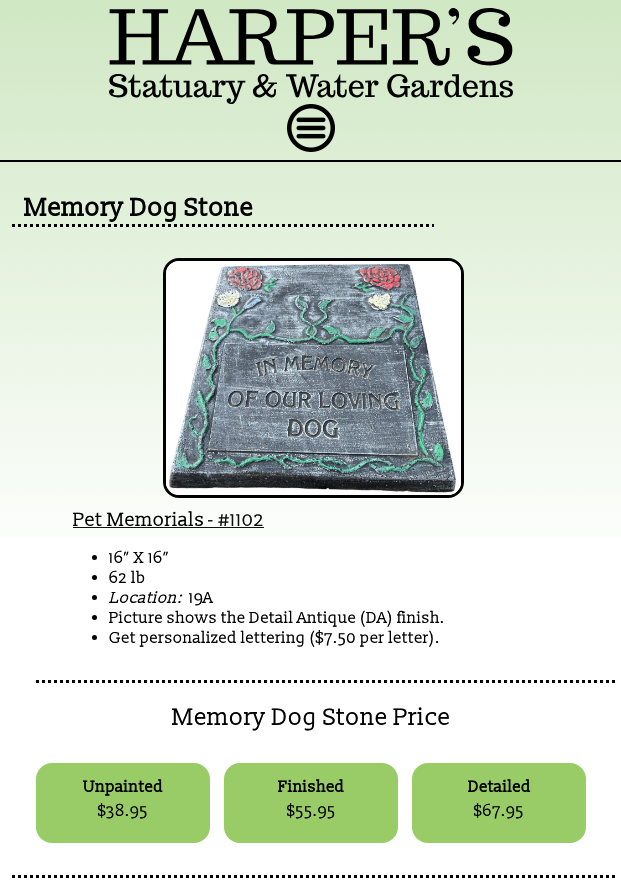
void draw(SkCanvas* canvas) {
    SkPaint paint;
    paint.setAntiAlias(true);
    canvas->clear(0xFFFFFFFF);
    canvas->drawImageRect(SkImages::DeferredFromEncodedData(SkData::MakeFromFileName("img1.png")), SkRect::MakeXYWH(0, 0, 621, 537), SkSamplingOptions());
    canvas->drawImageRect(SkImages::DeferredFromEncodedData(SkData::MakeFromFileName("img2.png")), SkRect::MakeXYWH(109, 8, 404, 96), SkSamplingOptions());
    paint.setColor(0xFF000000);
    canvas->drawRect(SkRect::MakeXYWH(0, 160, 621, 2), paint);
    canvas->drawImageRect(SkImages::DeferredFromEncodedData(SkData::MakeFromFileName("img3.png")), SkRect::MakeXYWH(287, 104, 48, 48), SkSamplingOptions());
    paint.setStyle(SkPaint::kStroke_Style);
    paint.setStrokeWidth(3);
    paint.setPathEffect(SkDashPathEffect::Make({{3, 3}}, 0));
    canvas->drawPath(SkPathBuilder().moveTo(12, 225.5f).lineTo(434, 225.5f).detach(), paint);
    paint.setPathEffect(nullptr);
    SkFont font1(fontMgr->matchFamilyStyle("Slabo 13px", SkFontStyle::Bold()), 25.5f);
    font1.setSubpixel(true);
    paint.setStyle(SkPaint::kFill_Style);
    canvas->drawString("Memory Dog Stone", 24, 216, font1, paint);
    paint.setStyle(SkPaint::kStroke_Style);
    canvas->drawRoundRect(SkRect::MakeXYWH(164.5f, 259.5f, 298, 237), 14.5f, 14.5f, paint);
    canvas->drawImageRect(SkImages::DeferredFromEncodedData(SkData::MakeFromFileName("img4.png")), SkRect::MakeXYWH(166, 261, 295, 234), SkSamplingOptions());
    SkFont font2(fontMgr->matchFamilyStyle("Slabo 13px", SkFontStyle::Normal()), 19.25f);
    font2.setSubpixel(true);
    paint.setStyle(SkPaint::kFill_Style);
    canvas->drawString("Pet Memorials", 73, 526, font2, paint);
    paint.setColor(0xFF111111);
    canvas->drawRect(SkRect::MakeXYWH(73, 527, 191, 1), paint);
    canvas->drawString("- #1102", 208, 526, font2, paint);
    paint.setColor(0xFF000000);
    canvas->drawCircle(94.5f, 557.5f, 2.5f, paint);
    SkFont font3(fontMgr->matchFamilyStyle("Slabo 13px", SkFontStyle::Normal()), 16);
    font3.setSubpixel(true);
    canvas->drawString("16” X 16”", 109, 563, font3, paint);
    canvas->drawCircle(94.5f, 577.5f, 2.5f, paint);
    canvas->drawString("62 lb", 109, 583, font3, paint);
    canvas->drawCircle(94.5f, 597.5f, 2.5f, paint);
    SkFont font4(fontMgr->matchFamilyStyle("Slabo 13px", SkFontStyle::Italic()), 16);
    font4.setSubpixel(true);
    canvas->drawString("Location:", 109, 603, font4, paint);
    canvas->drawString("19A", 189, 603, font3, paint);
    canvas->drawCircle(94.5f, 617.5f, 2.5f, paint);
    canvas->drawString("Picture shows the Detail Antique (DA) finish.", 109, 623, font3, paint);
    canvas->drawCircle(94.5f, 637.5f, 2.5f, paint);
    canvas->drawString("Get personalized lettering ($7.50 per letter).", 109, 643, font3, paint);
    paint.setStyle(SkPaint::kStroke_Style);
    paint.setPathEffect(SkDashPathEffect::Make({{3, 3}}, 0));
    canvas->drawPath(SkPathBuilder().moveTo(36, 681.5f).lineTo(615, 681.5f).detach(), paint);
    paint.setPathEffect(nullptr);
    SkFont font5(fontMgr->matchFamilyStyle("Slabo 13px", SkFontStyle::Normal()), 24);
    font5.setSubpixel(true);
    paint.setStyle(SkPaint::kFill_Style);
    canvas->drawString("Memory Dog Stone Price", 172, 725, font5, paint);
    paint.setColor(0xFF99CC66);
    canvas->drawRoundRect(SkRect::MakeXYWH(36, 763, 174, 80), 16, 16, paint);
    SkFont font6(fontMgr->matchFamilyStyle("Slabo 13px", SkFontStyle::Bold()), 16);
    font6.setSubpixel(true);
    paint.setColor(0xFF000000);
    canvas->drawString("Unpainted", 83, 792, font6, paint);
    canvas->drawString("$38.95", 98, 816, font3, paint);
    paint.setColor(0xFF99CC66);
    canvas->drawRoundRect(SkRect::MakeXYWH(224, 763, 174, 80), 16, 16, paint);
    paint.setColor(0xFF000000);
    canvas->drawString("Finished", 278, 792, font6, paint);
    canvas->drawString("$55.95", 287, 816, font3, paint);
    paint.setColor(0xFF99CC66);
    canvas->drawRoundRect(SkRect::MakeXYWH(412, 763, 174, 80), 16, 16, paint);
    paint.setColor(0xFF000000);
    canvas->drawString("Detailed", 468, 792, font6, paint);
    canvas->drawString("$67.95", 474, 816, font3, paint);
    paint.setStyle(SkPaint::kStroke_Style);
    paint.setPathEffect(SkDashPathEffect::Make({{3, 3}}, 0));
    canvas->drawPath(SkPathBuilder().moveTo(12, 876.5f).lineTo(615, 876.5f).detach(), paint);
    paint.setPathEffect(nullptr);
}
